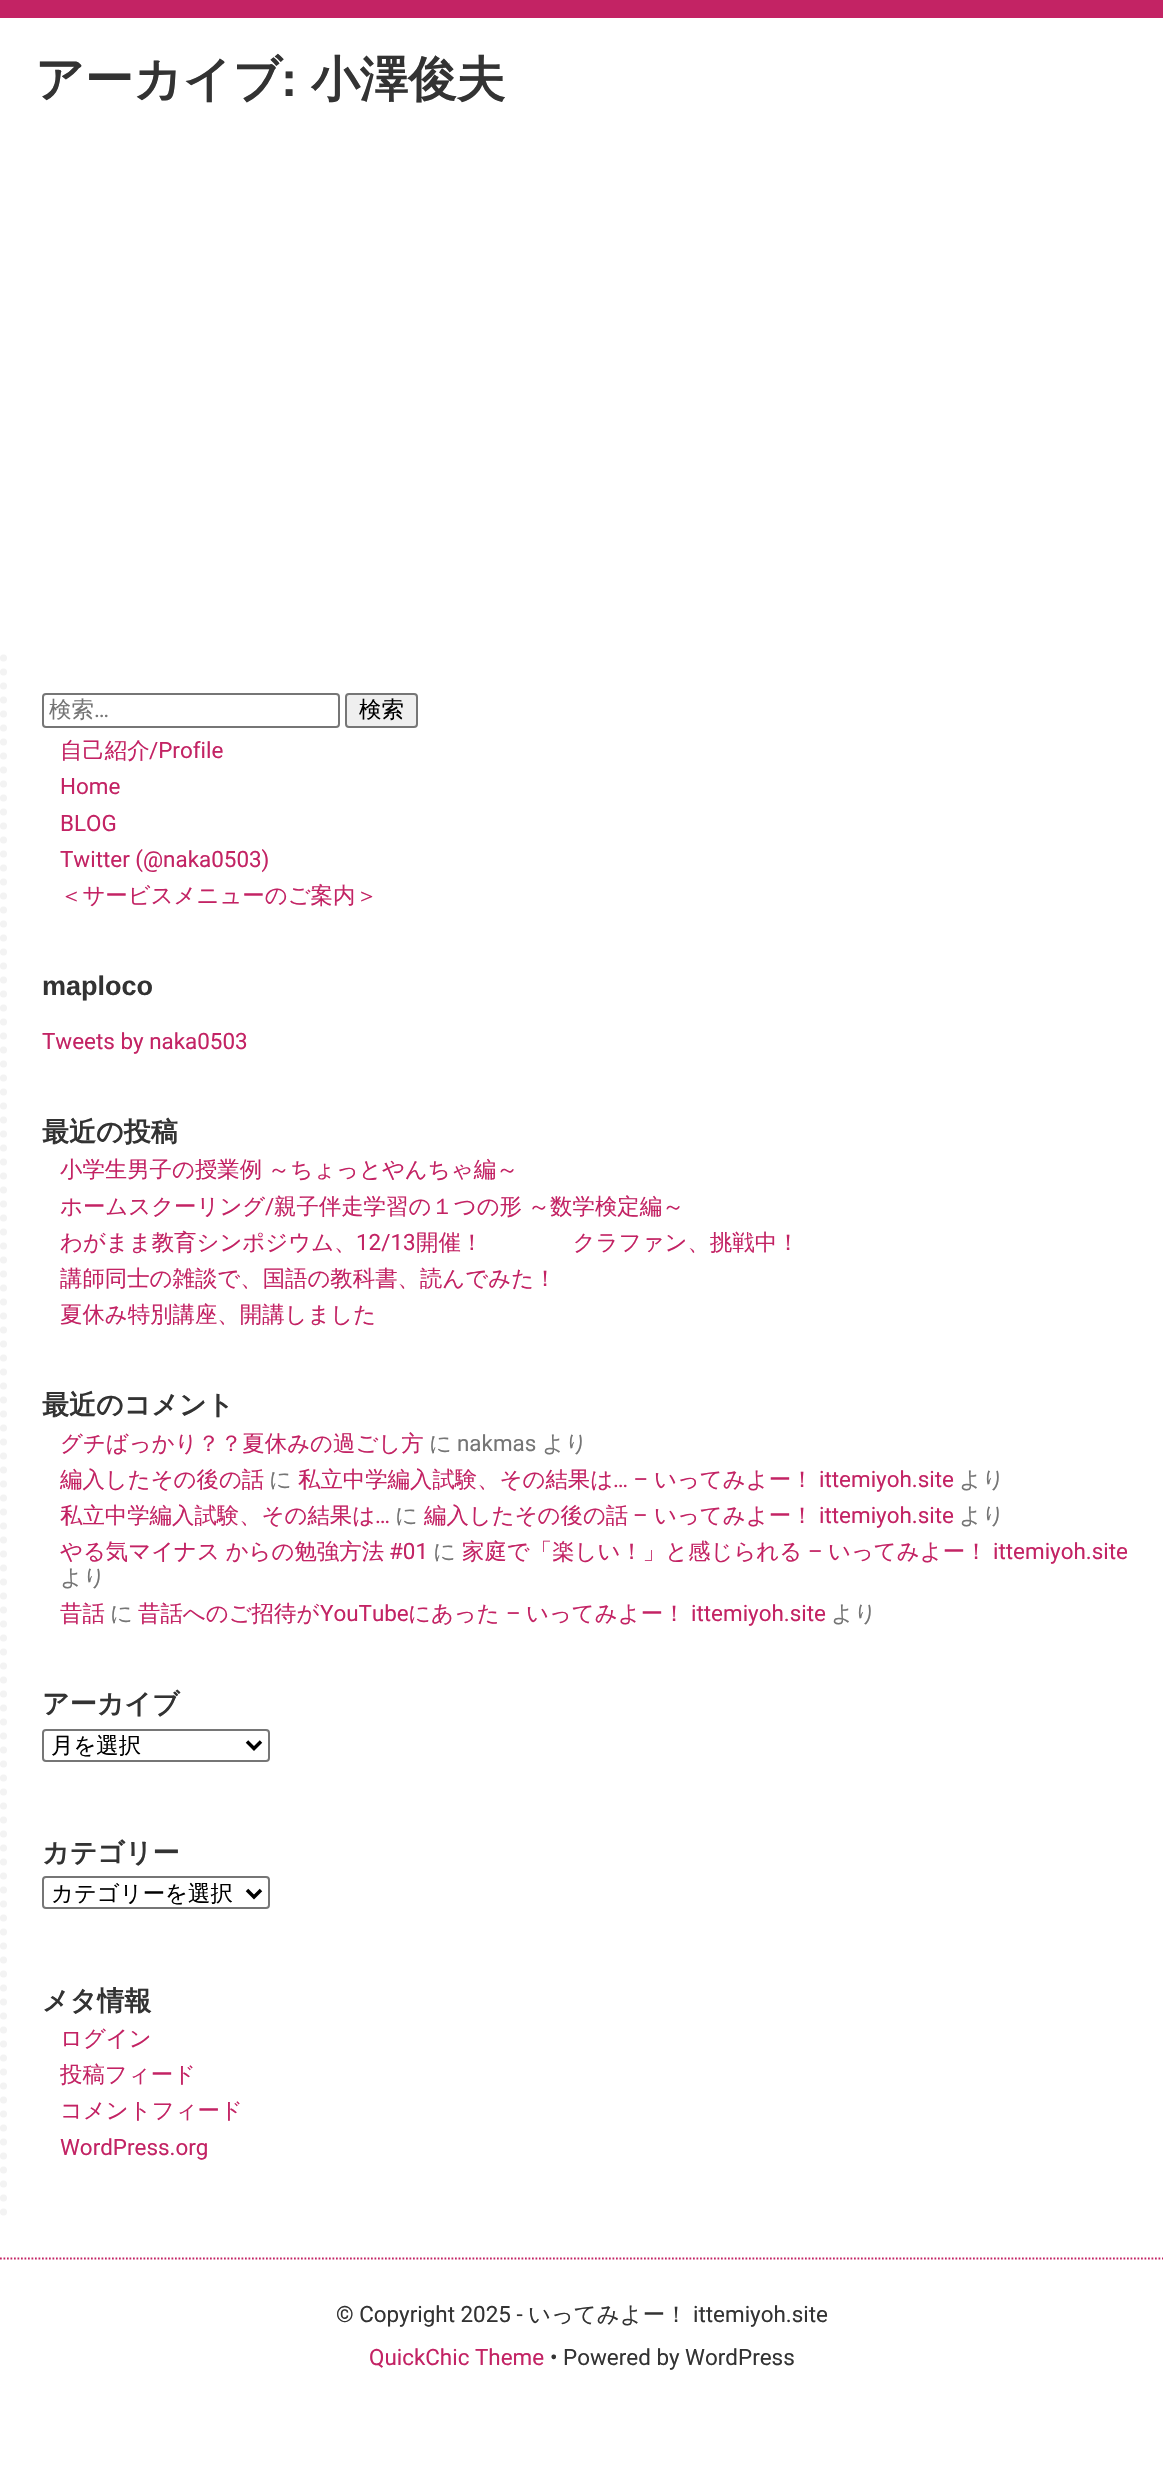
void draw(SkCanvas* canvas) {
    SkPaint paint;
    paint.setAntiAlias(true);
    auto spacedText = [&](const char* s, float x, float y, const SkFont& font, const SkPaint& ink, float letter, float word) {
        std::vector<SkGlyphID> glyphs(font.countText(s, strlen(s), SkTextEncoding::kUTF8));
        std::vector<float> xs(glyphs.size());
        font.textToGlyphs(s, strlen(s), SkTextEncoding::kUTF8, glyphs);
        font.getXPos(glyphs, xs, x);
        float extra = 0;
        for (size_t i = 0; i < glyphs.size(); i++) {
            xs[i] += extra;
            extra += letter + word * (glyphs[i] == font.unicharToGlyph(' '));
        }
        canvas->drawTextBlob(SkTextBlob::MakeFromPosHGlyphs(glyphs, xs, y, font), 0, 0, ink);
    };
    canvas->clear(0xFFFFFFFF);
    paint.setColor(0xFFC32364);
    canvas->drawRect(SkRect::MakeXYWH(0, 0, 1163, 18), paint);
    SkFont font1(fontMgr->matchFamilyStyle("WenQuanYi Zen Hei", SkFontStyle::Bold()), 48.5f);
    font1.setSubpixel(true);
    paint.setColor(0xFF333333);
    canvas->drawString("アーカイブ", 35, 96, font1, paint);
    SkFont font2(fontMgr->matchFamilyStyle("Liberation Sans", SkFontStyle::Bold()), 48.5f);
    font2.setSubpixel(true);
    canvas->drawString(":", 281, 96, font2, paint);
    canvas->drawString("小澤俊夫", 311, 96, font1, paint);
    paint.setStyle(SkPaint::kStroke_Style);
    paint.setStrokeWidth(7);
    paint.setStrokeCap(SkPaint::kRound_Cap);
    paint.setColor(0xFFF3F3F3);
    paint.setPathEffect(SkDashPathEffect::Make({{0, 14}}, 0));
    canvas->drawPath(SkPathBuilder().moveTo(3.5f, 658).lineTo(3.5f, 2222.5f).detach(), paint);
    paint.setPathEffect(nullptr);
    paint.setStrokeWidth(2);
    paint.setStrokeCap(SkPaint::kButt_Cap);
    paint.setColor(0xFF767676);
    canvas->drawRoundRect(SkRect::MakeXYWH(43, 694, 296, 33), 3, 3, paint);
    SkFont font3(fontMgr->matchFamilyStyle("WenQuanYi Zen Hei", SkFontStyle(500, SkFontStyle::kNormal_Width, SkFontStyle::kUpright_Slant)), 22.4f);
    font3.setSubpixel(true);
    paint.setStyle(SkPaint::kFill_Style);
    paint.setColor(0xFF757575);
    canvas->drawString("検索", 49, 717, font3, paint);
    SkFont font4(fontMgr->matchFamilyStyle("Roboto", SkFontStyle::Normal()), 22.4f);
    font4.setSubpixel(true);
    canvas->drawString("…", 94, 717, font4, paint);
    paint.setColor(0xFFEFEFEF);
    canvas->drawRoundRect(SkRect::MakeXYWH(346, 694, 71, 33), 3, 3, paint);
    paint.setStyle(SkPaint::kStroke_Style);
    paint.setColor(0xFF767676);
    canvas->drawRoundRect(SkRect::MakeXYWH(346, 694, 71, 33), 3, 3, paint);
    paint.setStyle(SkPaint::kFill_Style);
    paint.setColor(0xFF000000);
    canvas->drawString("検索", 359, 717, font3, paint);
    paint.setColor(0xFFC32364);
    canvas->drawString("自己紹介", 60, 758, font3, paint);
    canvas->drawString("/Profile", 149, 758, font4, paint);
    canvas->drawString("Home", 60, 794, font4, paint);
    canvas->drawString("BLOG", 60, 831, font4, paint);
    canvas->drawString("Twitter (@naka0503)", 60, 867, font4, paint);
    canvas->drawString("＜サービスメニューのご案内＞", 60, 903, font3, paint);
    SkFont font5(fontMgr->matchFamilyStyle("Liberation Sans", SkFontStyle::Bold()), 27);
    font5.setSubpixel(true);
    paint.setColor(0xFF333333);
    canvas->drawString("maploco", 42, 995, font5, paint);
    paint.setColor(0xFFC32364);
    canvas->drawString("Tweets by naka0503", 42, 1049, font4, paint);
    SkFont font6(fontMgr->matchFamilyStyle("WenQuanYi Zen Hei", SkFontStyle::Bold()), 27);
    font6.setSubpixel(true);
    paint.setColor(0xFF333333);
    canvas->drawString("最近の投稿", 42, 1141, font6, paint);
    paint.setColor(0xFFC32364);
    spacedText("小学生男子の授業例 ～ちょっとやんちゃ編～", 60, 1177, font3, paint, 0, -1);
    canvas->drawString("ホームスクーリング", 60, 1214, font3, paint);
    canvas->drawString("/", 265, 1214, font4, paint);
    spacedText("親子伴走学習の１つの形 ～数学検定編～", 274, 1214, font3, paint, 0, -1);
    canvas->drawString("わがまま教育シンポジウム、", 60, 1250, font3, paint);
    canvas->drawString("12/13", 356, 1250, font4, paint);
    canvas->drawString("開催！　　　　クラファン、挑戦中！", 416, 1250, font3, paint);
    canvas->drawString("講師同士の雑談で、国語の教科書、読んでみた！", 60, 1286, font3, paint);
    canvas->drawString("夏休み特別講座、開講しました", 60, 1322, font3, paint);
    paint.setColor(0xFF333333);
    canvas->drawString("最近のコメント", 42, 1414, font6, paint);
    paint.setColor(0xFFC32364);
    canvas->drawString("グチばっかり？？夏休みの過ごし方", 60, 1451, font3, paint);
    paint.setColor(0xFF757575);
    canvas->drawString("に", 429, 1451, font3, paint);
    canvas->drawString("nakmas", 457, 1451, font4, paint);
    canvas->drawString("より", 542, 1451, font3, paint);
    paint.setColor(0xFFC32364);
    canvas->drawString("編入したその後の話", 60, 1487, font3, paint);
    paint.setColor(0xFF757575);
    canvas->drawString("に", 269, 1487, font3, paint);
    paint.setColor(0xFFC32364);
    canvas->drawString("私立中学編入試験、その結果は", 298, 1487, font3, paint);
    canvas->drawString("… –", 613, 1487, font4, paint);
    canvas->drawString("いってみよー！", 654, 1487, font3, paint);
    canvas->drawString("ittemiyoh.site", 819, 1487, font4, paint);
    paint.setColor(0xFF757575);
    canvas->drawString("より", 959, 1487, font3, paint);
    paint.setColor(0xFFC32364);
    canvas->drawString("私立中学編入試験、その結果は", 60, 1523, font3, paint);
    paint.setColor(0xFF757575);
    canvas->drawString("に", 395, 1523, font3, paint);
    paint.setColor(0xFFC32364);
    canvas->drawString("編入したその後の話", 424, 1523, font3, paint);
    canvas->drawString("–", 633, 1523, font4, paint);
    canvas->drawString("いってみよー！", 654, 1523, font3, paint);
    canvas->drawString("ittemiyoh.site", 819, 1523, font4, paint);
    paint.setColor(0xFF757575);
    canvas->drawString("より", 959, 1523, font3, paint);
    paint.setColor(0xFFC32364);
    canvas->drawString("…", 375, 1523, font4, paint);
    spacedText("やる気マイナス からの勉強方法", 60, 1559, font3, paint, 0, -1);
    canvas->drawString("#01", 389, 1559, font4, paint);
    paint.setColor(0xFF757575);
    canvas->drawString("に", 433, 1559, font3, paint);
    paint.setColor(0xFFC32364);
    canvas->drawString("家庭で「楽しい！」と感じられる", 462, 1559, font3, paint);
    canvas->drawString("–", 808, 1559, font4, paint);
    canvas->drawString("いってみよー！", 828, 1559, font3, paint);
    canvas->drawString("ittemiyoh.site", 993, 1559, font4, paint);
    paint.setColor(0xFF757575);
    canvas->drawString("より", 60, 1585, font3, paint);
    paint.setColor(0xFFC32364);
    canvas->drawString("昔話", 60, 1621, font3, paint);
    paint.setColor(0xFF757575);
    canvas->drawString("に", 110, 1621, font3, paint);
    paint.setColor(0xFFC32364);
    canvas->drawString("昔話へのご招待が", 138, 1621, font3, paint);
    canvas->drawString("YouTube", 320, 1621, font4, paint);
    canvas->drawString("にあった", 408, 1621, font3, paint);
    canvas->drawString("–", 506, 1621, font4, paint);
    canvas->drawString("いってみよー！", 526, 1621, font3, paint);
    canvas->drawString("ittemiyoh.site", 691, 1621, font4, paint);
    paint.setColor(0xFF757575);
    canvas->drawString("より", 831, 1621, font3, paint);
    paint.setColor(0xFF333333);
    canvas->drawString("アーカイブ", 42, 1713, font6, paint);
    paint.setStyle(SkPaint::kStroke_Style);
    paint.setColor(0xFF767676);
    canvas->drawRoundRect(SkRect::MakeXYWH(43, 1730, 226, 31), 3, 3, paint);
    paint.setStrokeWidth(3.5f);
    paint.setColor(0xFF000000);
    canvas->drawPath(SkPathBuilder().moveTo(247, 1741.5f).lineTo(254, 1748.5f).lineTo(261, 1741.5f).detach(), paint);
    paint.setStyle(SkPaint::kFill_Style);
    canvas->drawString("月を選択", 51, 1753, font3, paint);
    paint.setColor(0xFF333333);
    canvas->drawString("カテゴリー", 42, 1862, font6, paint);
    paint.setStyle(SkPaint::kStroke_Style);
    paint.setStrokeWidth(2);
    paint.setColor(0xFF767676);
    canvas->drawRoundRect(SkRect::MakeXYWH(43, 1877, 226, 31), 3, 3, paint);
    paint.setStrokeWidth(3.5f);
    paint.setColor(0xFF000000);
    canvas->drawPath(SkPathBuilder().moveTo(247, 1890).lineTo(254, 1897).lineTo(261, 1890).detach(), paint);
    paint.setStyle(SkPaint::kFill_Style);
    canvas->drawString("カテゴリーを選択", 51, 1901, font3, paint);
    paint.setColor(0xFF333333);
    canvas->drawString("メタ情報", 42, 2010, font6, paint);
    paint.setColor(0xFFC32364);
    canvas->drawString("ログイン", 60, 2046, font3, paint);
    canvas->drawString("投稿フィード", 60, 2082, font3, paint);
    canvas->drawString("コメントフィード", 60, 2118, font3, paint);
    canvas->drawString("WordPress.org", 60, 2155, font4, paint);
    paint.setStyle(SkPaint::kStroke_Style);
    paint.setStrokeWidth(1.8f);
    paint.setPathEffect(SkDashPathEffect::Make({{1.75f, 1.75f}}, 0));
    canvas->drawPath(SkPathBuilder().moveTo(0, 2258.5f).lineTo(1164, 2258.5f).detach(), paint);
    paint.setPathEffect(nullptr);
    paint.setStyle(SkPaint::kFill_Style);
    paint.setColor(0xFF333333);
    canvas->drawString("© Copyright 2025 -", 336, 2322, font4, paint);
    canvas->drawString("いってみよー！", 528, 2322, font3, paint);
    canvas->drawString("ittemiyoh.site", 693, 2322, font4, paint);
    paint.setColor(0xFFC32364);
    canvas->drawString("QuickChic Theme", 369, 2365, font4, paint);
    paint.setColor(0xFF333333);
    canvas->drawString("• Powered by WordPress", 550, 2365, font4, paint);
}
